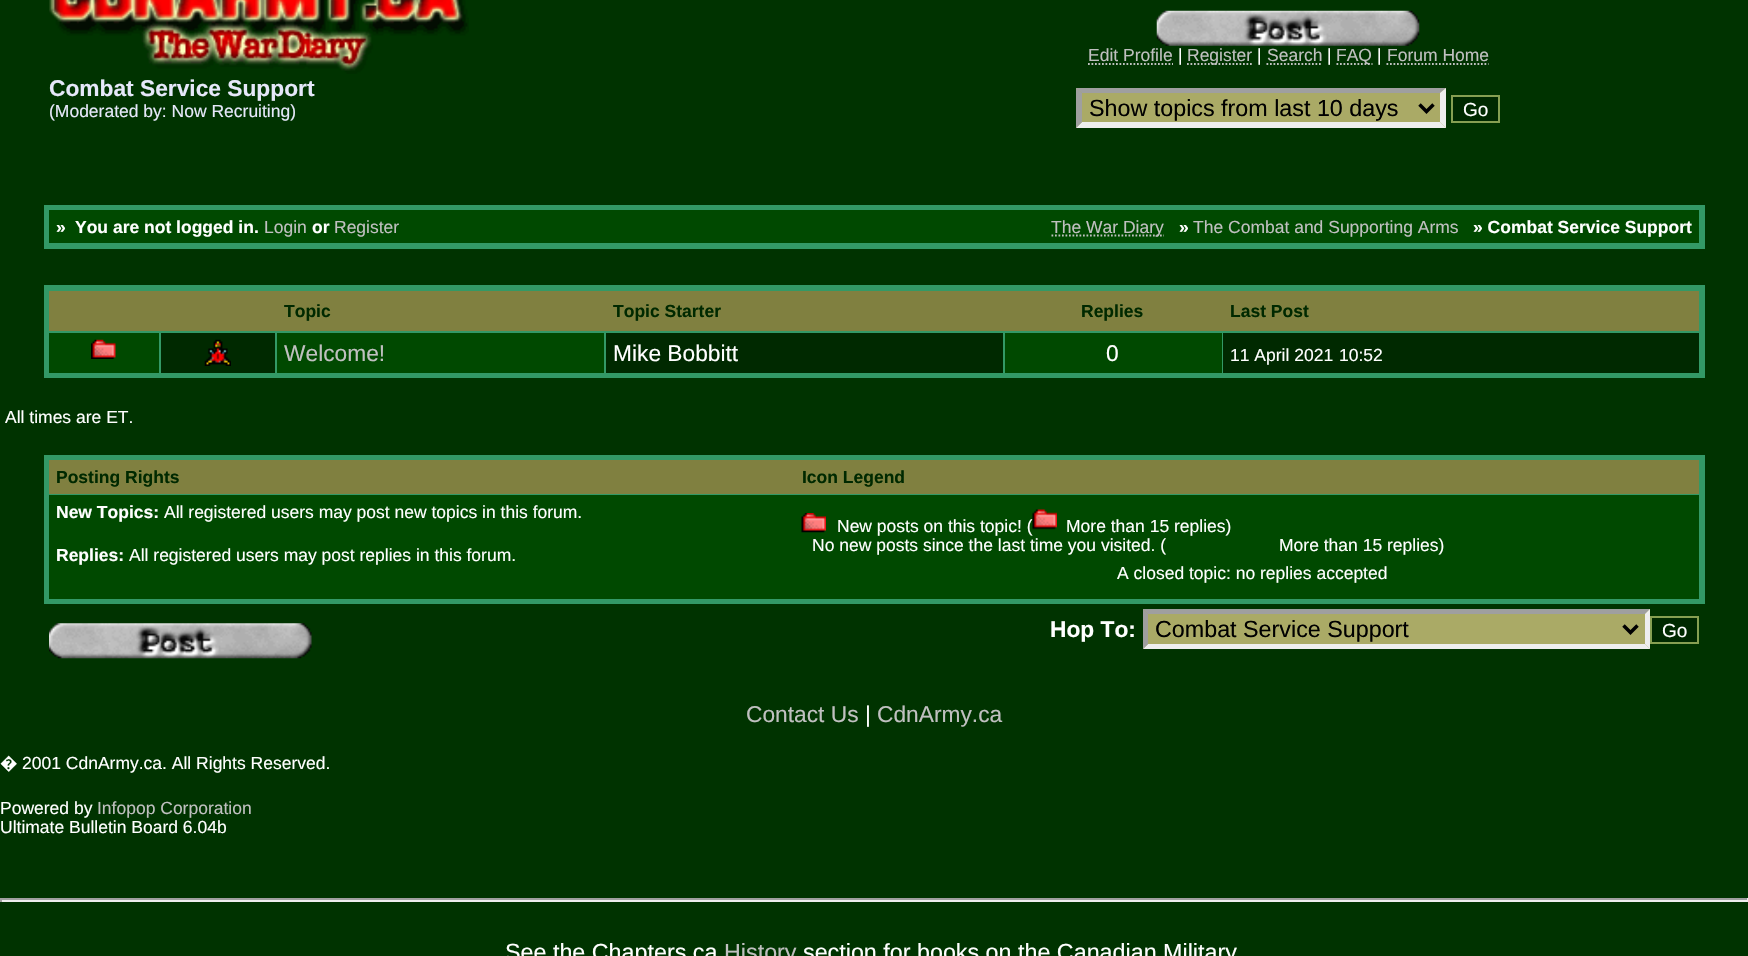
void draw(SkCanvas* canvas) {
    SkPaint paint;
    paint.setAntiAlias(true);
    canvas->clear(0xFF003300);
    canvas->drawImageRect(SkImages::DeferredFromEncodedData(SkData::MakeFromFileName("img1.png")), SkRect::MakeXYWH(49, 0, 420, 74), SkSamplingOptions());
    SkFont font1(fontMgr->matchFamilyStyle("Liberation Sans", SkFontStyle::Bold()), 22.75f);
    font1.setSubpixel(true);
    paint.setColor(0xFFE6E8FA);
    canvas->drawString("Combat Service Support", 49, 96, font1, paint);
    SkFont font2(fontMgr->matchFamilyStyle("Liberation Sans", SkFontStyle::Normal()), 17.5f);
    font2.setSubpixel(true);
    canvas->drawString("(Moderated by: Now Recruiting)", 49, 117, font2, paint);
    canvas->drawImageRect(SkImages::DeferredFromEncodedData(SkData::MakeFromFileName("img2.png")), SkRect::MakeXYWH(1156, 10, 264, 36), SkSamplingOptions());
    paint.setColor(0xFFC0C0C0);
    canvas->drawString("Edit Profile", 1088, 61, font2, paint);
    paint.setStyle(SkPaint::kStroke_Style);
    paint.setStrokeWidth(1.8f);
    paint.setPathEffect(SkDashPathEffect::Make({{1.75f, 1.75f}}, 0));
    canvas->drawPath(SkPathBuilder().moveTo(1088, 64).lineTo(1173, 64).detach(), paint);
    paint.setPathEffect(nullptr);
    paint.setStyle(SkPaint::kFill_Style);
    paint.setColor(0xFFFFFFFF);
    canvas->drawString("|", 1178, 61, font2, paint);
    paint.setStyle(SkPaint::kStroke_Style);
    paint.setColor(0xFFC0C0C0);
    paint.setPathEffect(SkDashPathEffect::Make({{1.75f, 1.75f}}, 0));
    canvas->drawPath(SkPathBuilder().moveTo(1187, 64).lineTo(1252.5f, 64).detach(), paint);
    paint.setPathEffect(nullptr);
    paint.setStyle(SkPaint::kFill_Style);
    canvas->drawString("Register", 1187, 61, font2, paint);
    paint.setColor(0xFFFFFFFF);
    canvas->drawString("|", 1257, 61, font2, paint);
    paint.setColor(0xFFC0C0C0);
    canvas->drawString("Search", 1267, 61, font2, paint);
    paint.setStyle(SkPaint::kStroke_Style);
    paint.setPathEffect(SkDashPathEffect::Make({{1.75f, 1.75f}}, 0));
    canvas->drawPath(SkPathBuilder().moveTo(1266.5f, 64).lineTo(1322, 64).detach(), paint);
    paint.setPathEffect(nullptr);
    paint.setStyle(SkPaint::kFill_Style);
    paint.setColor(0xFFFFFFFF);
    canvas->drawString("|", 1327, 61, font2, paint);
    paint.setStyle(SkPaint::kStroke_Style);
    paint.setColor(0xFFC0C0C0);
    paint.setPathEffect(SkDashPathEffect::Make({{1.75f, 1.75f}}, 0));
    canvas->drawPath(SkPathBuilder().moveTo(1336.5f, 64).lineTo(1372.5f, 64).detach(), paint);
    paint.setPathEffect(nullptr);
    paint.setStyle(SkPaint::kFill_Style);
    canvas->drawString("FAQ", 1336, 61, font2, paint);
    paint.setColor(0xFFFFFFFF);
    canvas->drawString("|", 1377, 61, font2, paint);
    paint.setColor(0xFFC0C0C0);
    canvas->drawString("Forum Home", 1387, 61, font2, paint);
    paint.setStyle(SkPaint::kStroke_Style);
    paint.setPathEffect(SkDashPathEffect::Make({{1.75f, 1.75f}}, 0));
    canvas->drawPath(SkPathBuilder().moveTo(1386.5f, 64).lineTo(1488.5f, 64).detach(), paint);
    paint.setPathEffect(nullptr);
    paint.setStyle(SkPaint::kFill_Style);
    paint.setColor(0xFFAAAA66);
    canvas->drawRect(SkRect::MakeXYWH(1076, 88, 370, 40), paint);
    paint.setColor(0xFF9F9F9F);
    canvas->drawPath(SkPathBuilder().moveTo(1076, 88).lineTo(1446, 88).lineTo(1440, 93).lineTo(1082, 93).close().detach(), paint);
    paint.setColor(0xFFEEEEEE);
    canvas->drawPath(SkPathBuilder().moveTo(1446, 88).lineTo(1446, 128).lineTo(1440, 122).lineTo(1440, 93).close().detach(), paint);
    canvas->drawPath(SkPathBuilder().moveTo(1446, 128).lineTo(1076, 128).lineTo(1082, 122).lineTo(1440, 122).close().detach(), paint);
    paint.setColor(0xFF9F9F9F);
    canvas->drawPath(SkPathBuilder().moveTo(1076, 128).lineTo(1076, 88).lineTo(1082, 93).lineTo(1082, 122).close().detach(), paint);
    paint.setStyle(SkPaint::kStroke_Style);
    paint.setStrokeWidth(3.5f);
    paint.setColor(0xFF000000);
    canvas->drawPath(SkPathBuilder().moveTo(1419.5f, 104.5f).lineTo(1426.5f, 111.5f).lineTo(1433.5f, 104.5f).detach(), paint);
    SkFont font3(fontMgr->matchFamilyStyle("Liberation Sans", SkFontStyle::Normal()), 23.3f);
    font3.setSubpixel(true);
    paint.setStyle(SkPaint::kFill_Style);
    canvas->drawString("Show topics from last 10 days", 1089, 116, font3, paint);
    paint.setColor(0xFF002900);
    canvas->drawRect(SkRect::MakeXYWH(1452, 96, 47, 26), paint);
    paint.setStyle(SkPaint::kStroke_Style);
    paint.setStrokeWidth(2);
    paint.setColor(0xFF869F52);
    canvas->drawRect(SkRect::MakeXYWH(1452, 96, 47, 26), paint);
    SkFont font4(fontMgr->matchFamilyStyle("Liberation Sans", SkFontStyle::Normal()), 19);
    font4.setSubpixel(true);
    paint.setStyle(SkPaint::kFill_Style);
    paint.setColor(0xFFFFFFFF);
    canvas->drawString("Go", 1463, 116, font4, paint);
    paint.setColor(0xFF339966);
    canvas->drawRect(SkRect::MakeXYWH(44, 205, 1661, 44), paint);
    paint.setColor(0xFF004900);
    canvas->drawRect(SkRect::MakeXYWH(49, 210, 1650, 33), paint);
    SkFont font5(fontMgr->matchFamilyStyle("Liberation Sans", SkFontStyle::Bold()), 17.5f);
    font5.setSubpixel(true);
    paint.setColor(0xFFFFFFFF);
    canvas->drawString("»", 56, 233, font5, paint);
    canvas->drawString("You are not logged in.", 75, 233, font5, paint);
    paint.setColor(0xFFC0C0C0);
    canvas->drawString("Login", 264, 233, font2, paint);
    paint.setColor(0xFFFFFFFF);
    canvas->drawString("or", 312, 233, font5, paint);
    paint.setColor(0xFFC0C0C0);
    canvas->drawString("Register", 334, 233, font2, paint);
    paint.setStyle(SkPaint::kStroke_Style);
    paint.setStrokeWidth(1.8f);
    paint.setPathEffect(SkDashPathEffect::Make({{1.75f, 1.75f}}, 0));
    canvas->drawPath(SkPathBuilder().moveTo(1051.5f, 235.5f).lineTo(1164, 235.5f).detach(), paint);
    paint.setPathEffect(nullptr);
    paint.setStyle(SkPaint::kFill_Style);
    canvas->drawString("The War Diary", 1051, 233, font2, paint);
    paint.setColor(0xFFFFFFFF);
    canvas->drawString("»", 1179, 233, font5, paint);
    paint.setColor(0xFFC0C0C0);
    canvas->drawString("The Combat and Supporting Arms", 1193, 233, font2, paint);
    paint.setColor(0xFFFFFFFF);
    canvas->drawString("» Combat Service Support", 1473, 233, font5, paint);
    paint.setColor(0xFF339966);
    canvas->drawRect(SkRect::MakeXYWH(44, 285, 1661, 93), paint);
    paint.setColor(0xFF808040);
    canvas->drawRect(SkRect::MakeXYWH(49, 291, 1650, 40), paint);
    paint.setColor(0xFF002900);
    canvas->drawString("Topic", 284, 317, font5, paint);
    canvas->drawString("Topic Starter", 613, 317, font5, paint);
    canvas->drawString("Replies", 1081, 317, font5, paint);
    canvas->drawString("Last Post", 1230, 317, font5, paint);
    paint.setColor(0xFF004900);
    canvas->drawRect(SkRect::MakeXYWH(49, 333, 110, 40), paint);
    canvas->drawImageRect(SkImages::DeferredFromEncodedData(SkData::MakeFromFileName("img3.png")), SkRect::MakeXYWH(91, 339, 25, 20), SkSamplingOptions());
    paint.setColor(0xFF002900);
    canvas->drawRect(SkRect::MakeXYWH(161, 333, 114, 40), paint);
    canvas->drawImageRect(SkImages::DeferredFromEncodedData(SkData::MakeFromFileName("img4.png")), SkRect::MakeXYWH(204, 339, 27, 27), SkSamplingOptions());
    paint.setColor(0xFF004900);
    canvas->drawRect(SkRect::MakeXYWH(277, 333, 327, 40), paint);
    SkFont font6(fontMgr->matchFamilyStyle("Liberation Sans", SkFontStyle::Normal()), 22.75f);
    font6.setSubpixel(true);
    paint.setColor(0xFFC0C0C0);
    canvas->drawString("Welcome!", 284, 361, font6, paint);
    paint.setColor(0xFF002900);
    canvas->drawRect(SkRect::MakeXYWH(606, 333, 397, 40), paint);
    paint.setColor(0xFFFFFFFF);
    canvas->drawString("Mike Bobbitt", 613, 361, font6, paint);
    paint.setColor(0xFF004900);
    canvas->drawRect(SkRect::MakeXYWH(1005, 333, 217, 40), paint);
    paint.setColor(0xFFFFFFFF);
    canvas->drawString("0", 1106, 361, font6, paint);
    paint.setColor(0xFF002900);
    canvas->drawRect(SkRect::MakeXYWH(1223, 333, 476, 40), paint);
    paint.setColor(0xFFFFFFFF);
    canvas->drawString("11 April 2021", 1230, 361, font2, paint);
    canvas->drawString("10:52", 1339, 361, font2, paint);
    canvas->drawString("All times are ET.", 5, 423, font2, paint);
    paint.setColor(0xFF339966);
    canvas->drawRect(SkRect::MakeXYWH(44, 455, 1661, 149), paint);
    paint.setColor(0xFF808040);
    canvas->drawRect(SkRect::MakeXYWH(49, 460, 1650, 34), paint);
    paint.setColor(0xFF002900);
    canvas->drawString("Posting Rights", 56, 483, font5, paint);
    canvas->drawString("Icon Legend", 802, 483, font5, paint);
    paint.setColor(0xFF004900);
    canvas->drawRect(SkRect::MakeXYWH(49, 495, 1650, 104), paint);
    paint.setColor(0xFFFFFFFF);
    canvas->drawString("New Topics:", 56, 518, font5, paint);
    canvas->drawString("All registered users may post new topics in this forum.", 164, 518, font2, paint);
    canvas->drawString("Replies:", 56, 561, font5, paint);
    canvas->drawString("All registered users may post replies in this forum.", 129, 561, font2, paint);
    canvas->drawImageRect(SkImages::DeferredFromEncodedData(SkData::MakeFromFileName("img5.png")), SkRect::MakeXYWH(801, 513, 25, 20), SkSamplingOptions());
    canvas->drawString("New posts on this topic! (", 837, 532, font2, paint);
    canvas->drawImageRect(SkImages::DeferredFromEncodedData(SkData::MakeFromFileName("img6.png")), SkRect::MakeXYWH(1032, 509, 25, 21), SkSamplingOptions());
    canvas->drawString("More than 15 replies)", 1066, 532, font2, paint);
    canvas->drawString("No new posts since the last time you visited. (", 812, 551, font2, paint);
    canvas->drawString("More than 15 replies)", 1279, 551, font2, paint);
    canvas->drawString("A closed topic: no replies accepted", 1117, 579, font2, paint);
    canvas->drawImageRect(SkImages::DeferredFromEncodedData(SkData::MakeFromFileName("img7.png")), SkRect::MakeXYWH(49, 623, 263, 36), SkSamplingOptions());
    canvas->drawString("Hop To:", 1050, 637, font1, paint);
    paint.setColor(0xFFAAAA66);
    canvas->drawRect(SkRect::MakeXYWH(1143, 609, 507, 40), paint);
    paint.setColor(0xFF9F9F9F);
    canvas->drawPath(SkPathBuilder().moveTo(1143, 609).lineTo(1650, 609).lineTo(1645, 614).lineTo(1148, 614).close().detach(), paint);
    paint.setColor(0xFFEEEEEE);
    canvas->drawPath(SkPathBuilder().moveTo(1650, 609).lineTo(1650, 649).lineTo(1645, 644).lineTo(1645, 614).close().detach(), paint);
    canvas->drawPath(SkPathBuilder().moveTo(1650, 649).lineTo(1143, 649).lineTo(1148, 644).lineTo(1645, 644).close().detach(), paint);
    paint.setColor(0xFF9F9F9F);
    canvas->drawPath(SkPathBuilder().moveTo(1143, 649).lineTo(1143, 609).lineTo(1148, 614).lineTo(1148, 644).close().detach(), paint);
    paint.setStyle(SkPaint::kStroke_Style);
    paint.setStrokeWidth(3.5f);
    paint.setColor(0xFF000000);
    canvas->drawPath(SkPathBuilder().moveTo(1623.5f, 625.5f).lineTo(1630.5f, 632.5f).lineTo(1637.5f, 625.5f).detach(), paint);
    paint.setStyle(SkPaint::kFill_Style);
    canvas->drawString("Combat Service Support", 1155, 637, font3, paint);
    paint.setColor(0xFF002900);
    canvas->drawRect(SkRect::MakeXYWH(1651, 617, 47, 26), paint);
    paint.setStyle(SkPaint::kStroke_Style);
    paint.setStrokeWidth(2);
    paint.setColor(0xFF869F52);
    canvas->drawRect(SkRect::MakeXYWH(1651, 617, 47, 26), paint);
    paint.setStyle(SkPaint::kFill_Style);
    paint.setColor(0xFFFFFFFF);
    canvas->drawString("Go", 1662, 637, font4, paint);
    paint.setColor(0xFFC0C0C0);
    canvas->drawString("Contact Us", 746, 722, font6, paint);
    paint.setColor(0xFFFFFFFF);
    canvas->drawString("|", 865, 722, font6, paint);
    paint.setColor(0xFFC0C0C0);
    canvas->drawString("CdnArmy.ca", 877, 722, font6, paint);
    SkFont font7(fontMgr->matchFamilyStyle("Noto Sans", SkFontStyle::Normal()), 17.5f);
    font7.setSubpixel(true);
    paint.setColor(0xFFFFFFFF);
    canvas->drawString("�", 0, 769, font7, paint);
    canvas->drawString("2001 CdnArmy.ca. All Rights Reserved.", 22, 769, font2, paint);
    canvas->drawString("Powered by", 0, 814, font2, paint);
    paint.setColor(0xFFC0C0C0);
    canvas->drawString("Infopop Corporation", 97, 814, font2, paint);
    paint.setColor(0xFFFFFFFF);
    canvas->drawString("Ultimate Bulletin Board 6.04b", 0, 833, font2, paint);
    paint.setColor(0xFF9F9F9F);
    canvas->drawRect(SkRect::MakeXYWH(0, 898, 1748, 2), paint);
    paint.setColor(0xFFEEEEEE);
    canvas->drawRect(SkRect::MakeXYWH(1747, 898, 1, 4), paint);
    canvas->drawRect(SkRect::MakeXYWH(0, 900, 1748, 2), paint);
    paint.setColor(0xFF9F9F9F);
    canvas->drawRect(SkRect::MakeXYWH(0, 898, 2, 4), paint);
    paint.setColor(0xFFFFFFFF);
    canvas->drawString("See the Chapters.ca", 505, 960, font3, paint);
    paint.setColor(0xFFC0C0C0);
    canvas->drawString("History", 724, 960, font3, paint);
    paint.setColor(0xFFFFFFFF);
    canvas->drawString("section for books on the Canadian Military", 803, 960, font3, paint);
}
